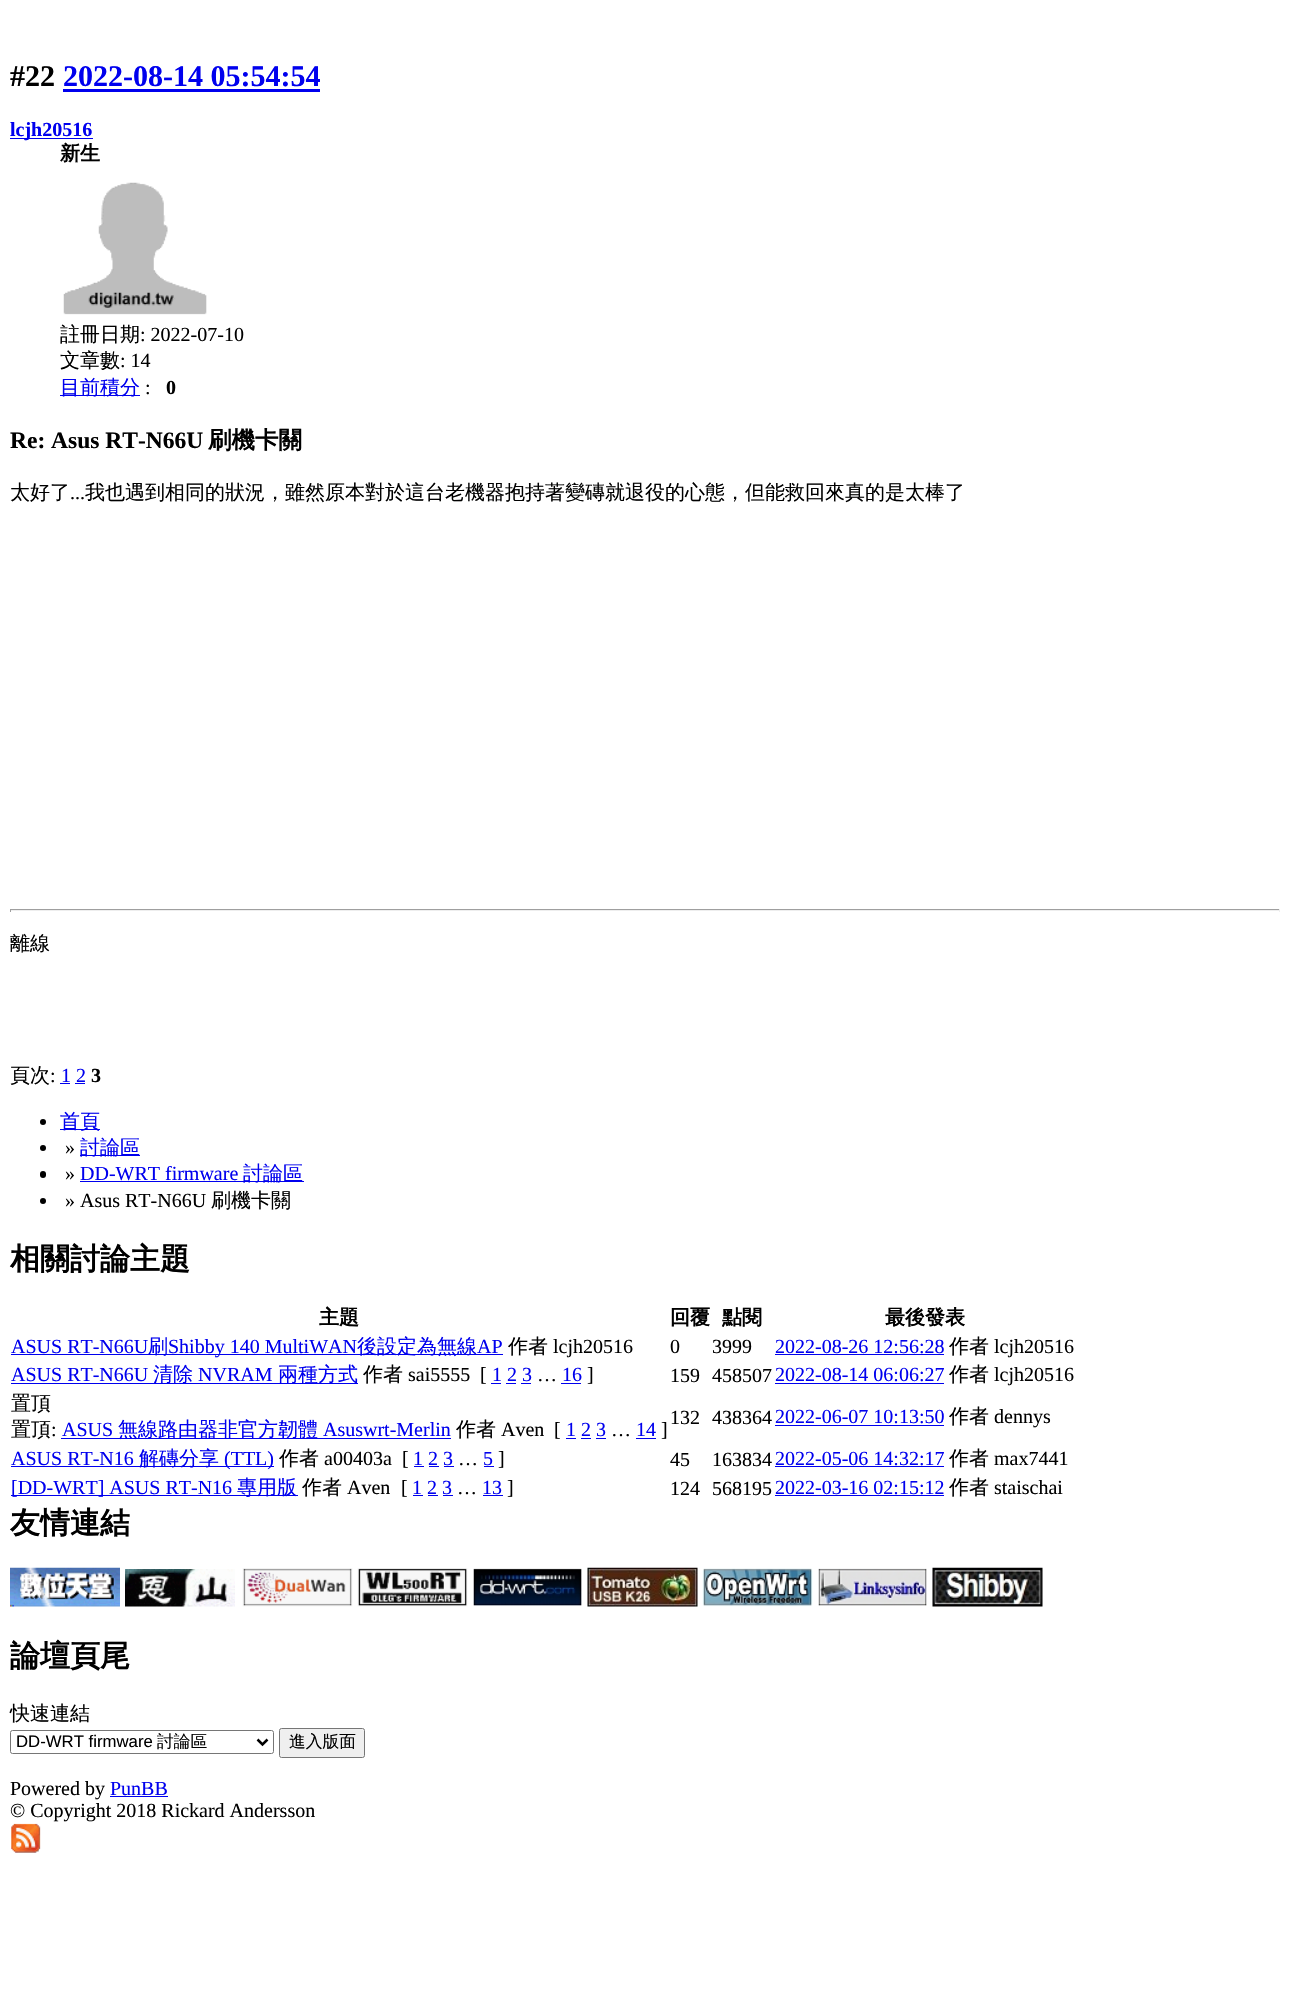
void draw(SkCanvas* canvas) {
    SkPaint paint;
    paint.setAntiAlias(true);
    canvas->clear(0xFFFFFFFF);
    SkFont font1(fontMgr->matchFamilyStyle("Liberation Serif", SkFontStyle::Bold()), 30);
    font1.setSubpixel(true);
    paint.setColor(0xFF000000);
    canvas->drawString("#22", 10, 86, font1, paint);
    paint.setColor(0xFF0000EE);
    canvas->drawString("2022-08-14 05:54:54", 63, 86, font1, paint);
    canvas->drawRect(SkRect::MakeXYWH(63, 89, 257, 3), paint);
    canvas->drawRect(SkRect::MakeXYWH(10, 138, 83, 1), paint);
    SkFont font2(fontMgr->matchFamilyStyle("Liberation Serif", SkFontStyle::Bold()), 20);
    font2.setSubpixel(true);
    canvas->drawString("lcjh20516", 10, 136, font2, paint);
    SkFont font3(fontMgr->matchFamilyStyle("WenQuanYi Zen Hei", SkFontStyle::Bold()), 20);
    font3.setSubpixel(true);
    paint.setColor(0xFF000000);
    canvas->drawString("新生", 60, 160, font3, paint);
    canvas->drawImageRect(SkImages::DeferredFromEncodedData(SkData::MakeFromFileName("img1.png")), SkRect::MakeXYWH(63, 182, 144, 133), SkSamplingOptions());
    SkFont font4(fontMgr->matchFamilyStyle("WenQuanYi Zen Hei", SkFontStyle(500, SkFontStyle::kNormal_Width, SkFontStyle::kUpright_Slant)), 20);
    font4.setSubpixel(true);
    canvas->drawString("註冊日期", 60, 341, font4, paint);
    SkFont font5(fontMgr->matchFamilyStyle("Liberation Serif", SkFontStyle::Normal()), 20);
    font5.setSubpixel(true);
    canvas->drawString(": 2022-07-10", 140, 341, font5, paint);
    canvas->drawString("文章數", 60, 367, font4, paint);
    canvas->drawString(": 14", 120, 367, font5, paint);
    paint.setColor(0xFF0000EE);
    canvas->drawRect(SkRect::MakeXYWH(60, 395, 80, 1), paint);
    canvas->drawString("目前積分", 60, 394, font4, paint);
    paint.setColor(0xFF000000);
    canvas->drawString(":", 145, 394, font5, paint);
    canvas->drawString("0", 166, 394, font2, paint);
    SkFont font6(fontMgr->matchFamilyStyle("Liberation Serif", SkFontStyle::Bold()), 23.5f);
    font6.setSubpixel(true);
    canvas->drawString("Re: Asus RT-N66U", 10, 448, font6, paint);
    SkFont font7(fontMgr->matchFamilyStyle("WenQuanYi Zen Hei", SkFontStyle::Bold()), 23.5f);
    font7.setSubpixel(true);
    canvas->drawString("刷機卡關", 208, 448, font7, paint);
    canvas->drawString("太好了", 10, 499, font4, paint);
    canvas->drawString("...", 70, 499, font5, paint);
    canvas->drawString("我也遇到相同的狀況，雖然原本對於這台老機器抱持著變磚就退役的心態，但能救回來真的是太棒了", 85, 499, font4, paint);
    paint.setColor(0xFF9F9F9F);
    canvas->drawRect(SkRect::MakeXYWH(10, 909, 1270, 1), paint);
    paint.setColor(0xFFEEEEEE);
    canvas->drawRect(SkRect::MakeXYWH(1279, 909, 1, 3), paint);
    canvas->drawRect(SkRect::MakeXYWH(10, 910, 1270, 1), paint);
    paint.setColor(0xFF9F9F9F);
    canvas->drawRect(SkRect::MakeXYWH(10, 909, 1, 3), paint);
    paint.setColor(0xFF000000);
    canvas->drawString("離線", 10, 950, font4, paint);
    canvas->drawString("頁次", 10, 1082, font4, paint);
    canvas->drawString(":", 50, 1082, font5, paint);
    paint.setColor(0xFF0000EE);
    canvas->drawString("1 2", 61, 1082, font5, paint);
    canvas->drawRect(SkRect::MakeXYWH(60, 1083, 10, 1), paint);
    paint.setColor(0xFF000000);
    canvas->drawString("3", 91, 1082, font2, paint);
    paint.setColor(0xFF0000EE);
    canvas->drawRect(SkRect::MakeXYWH(75, 1083, 10, 1), paint);
    paint.setColor(0xFF000000);
    canvas->drawCircle(43, 1122, 3, paint);
    paint.setColor(0xFF0000EE);
    canvas->drawRect(SkRect::MakeXYWH(60, 1129, 40, 1), paint);
    canvas->drawString("首頁", 60, 1128, font4, paint);
    paint.setColor(0xFF000000);
    canvas->drawCircle(43, 1148, 3, paint);
    canvas->drawString("»", 65, 1154, font5, paint);
    paint.setColor(0xFF0000EE);
    canvas->drawRect(SkRect::MakeXYWH(80, 1155, 60, 1), paint);
    canvas->drawString("討論區", 80, 1154, font4, paint);
    paint.setColor(0xFF000000);
    canvas->drawRoundRect(SkRect::MakeXYWH(40, 1171, 6, 7), 3, 3, paint);
    canvas->drawString("»", 65, 1180, font5, paint);
    paint.setColor(0xFF0000EE);
    canvas->drawString("DD-WRT firmware", 80, 1180, font5, paint);
    canvas->drawRect(SkRect::MakeXYWH(80, 1181, 224, 1), paint);
    canvas->drawString("討論區", 243, 1180, font4, paint);
    paint.setColor(0xFF000000);
    canvas->drawCircle(43, 1201, 3, paint);
    canvas->drawString("» Asus RT-N66U", 65, 1207, font5, paint);
    canvas->drawString("刷機卡關", 211, 1207, font4, paint);
    SkFont font8(fontMgr->matchFamilyStyle("WenQuanYi Zen Hei", SkFontStyle::Bold()), 30);
    font8.setSubpixel(true);
    canvas->drawString("相關討論主題", 10, 1269, font8, paint);
    canvas->drawString("主題", 319, 1324, font3, paint);
    canvas->drawString("回覆", 670, 1324, font3, paint);
    canvas->drawString("點閱", 722, 1324, font3, paint);
    canvas->drawString("最後發表", 885, 1324, font3, paint);
    paint.setColor(0xFF0000EE);
    canvas->drawString("ASUS RT-N66U", 11, 1353, font5, paint);
    canvas->drawRect(SkRect::MakeXYWH(11, 1354, 492, 1), paint);
    canvas->drawString("刷", 148, 1353, font4, paint);
    canvas->drawString("Shibby 140 MultiWAN", 168, 1353, font5, paint);
    canvas->drawString("後設定為無線", 357, 1353, font4, paint);
    canvas->drawString("AP", 477, 1353, font5, paint);
    paint.setColor(0xFF000000);
    canvas->drawString("作者", 508, 1353, font4, paint);
    canvas->drawString("lcjh20516", 553, 1353, font5, paint);
    canvas->drawString("0", 670, 1353, font5, paint);
    canvas->drawString("3999", 712, 1353, font5, paint);
    paint.setColor(0xFF0000EE);
    canvas->drawString("2022-08-26 12:56:28", 775, 1353, font5, paint);
    canvas->drawRect(SkRect::MakeXYWH(775, 1354, 169, 1), paint);
    paint.setColor(0xFF000000);
    canvas->drawString("作者", 949, 1353, font4, paint);
    canvas->drawString("lcjh20516", 994, 1353, font5, paint);
    paint.setColor(0xFF0000EE);
    canvas->drawString("ASUS RT-N66U", 11, 1381, font5, paint);
    canvas->drawRect(SkRect::MakeXYWH(11, 1383, 347, 1), paint);
    canvas->drawString("清除", 153, 1381, font4, paint);
    canvas->drawString("NVRAM", 198, 1381, font5, paint);
    canvas->drawString("兩種方式", 278, 1381, font4, paint);
    paint.setColor(0xFF000000);
    canvas->drawString("作者", 363, 1381, font4, paint);
    canvas->drawString("sai5555", 408, 1381, font5, paint);
    canvas->drawString("[", 480, 1381, font5, paint);
    paint.setColor(0xFF0000EE);
    canvas->drawString("1 2 3", 492, 1381, font5, paint);
    canvas->drawRect(SkRect::MakeXYWH(491, 1383, 10, 1), paint);
    paint.setColor(0xFF000000);
    canvas->drawString("…", 537, 1381, font5, paint);
    paint.setColor(0xFF0000EE);
    canvas->drawString("16", 562, 1381, font5, paint);
    canvas->drawRect(SkRect::MakeXYWH(561, 1383, 20, 1), paint);
    paint.setColor(0xFF000000);
    canvas->drawString("]", 587, 1381, font5, paint);
    paint.setColor(0xFF0000EE);
    canvas->drawRect(SkRect::MakeXYWH(506, 1383, 10, 1), paint);
    canvas->drawRect(SkRect::MakeXYWH(521, 1383, 10, 1), paint);
    paint.setColor(0xFF000000);
    canvas->drawString("159", 670, 1382, font5, paint);
    canvas->drawString("458507", 712, 1382, font5, paint);
    paint.setColor(0xFF0000EE);
    canvas->drawString("2022-08-14 06:06:27", 775, 1381, font5, paint);
    canvas->drawRect(SkRect::MakeXYWH(775, 1383, 169, 1), paint);
    paint.setColor(0xFF000000);
    canvas->drawString("作者", 949, 1381, font4, paint);
    canvas->drawString("lcjh20516", 994, 1381, font5, paint);
    canvas->drawString("置頂", 11, 1410, font4, paint);
    canvas->drawString("置頂", 11, 1436, font4, paint);
    canvas->drawString(":", 51, 1436, font5, paint);
    paint.setColor(0xFF0000EE);
    canvas->drawString("ASUS", 62, 1436, font5, paint);
    canvas->drawRect(SkRect::MakeXYWH(61, 1438, 390, 1), paint);
    canvas->drawString("無線路由器非官方韌體", 118, 1436, font4, paint);
    canvas->drawString("Asuswrt-Merlin", 323, 1436, font5, paint);
    paint.setColor(0xFF000000);
    canvas->drawString("作者", 456, 1436, font4, paint);
    canvas->drawString("Aven", 501, 1436, font5, paint);
    canvas->drawString("[", 554, 1436, font5, paint);
    paint.setColor(0xFF0000EE);
    canvas->drawString("1 2 3", 566, 1436, font5, paint);
    canvas->drawRect(SkRect::MakeXYWH(566, 1438, 10, 1), paint);
    paint.setColor(0xFF000000);
    canvas->drawString("…", 611, 1436, font5, paint);
    paint.setColor(0xFF0000EE);
    canvas->drawString("14", 636, 1436, font5, paint);
    canvas->drawRect(SkRect::MakeXYWH(636, 1438, 20, 1), paint);
    paint.setColor(0xFF000000);
    canvas->drawString("]", 661, 1436, font5, paint);
    paint.setColor(0xFF0000EE);
    canvas->drawRect(SkRect::MakeXYWH(581, 1438, 10, 1), paint);
    canvas->drawRect(SkRect::MakeXYWH(596, 1438, 10, 1), paint);
    paint.setColor(0xFF000000);
    canvas->drawString("132", 670, 1424, font5, paint);
    canvas->drawString("438364", 712, 1424, font5, paint);
    paint.setColor(0xFF0000EE);
    canvas->drawString("2022-06-07 10:13:50", 775, 1423, font5, paint);
    canvas->drawRect(SkRect::MakeXYWH(775, 1425, 169, 1), paint);
    paint.setColor(0xFF000000);
    canvas->drawString("作者", 949, 1423, font4, paint);
    canvas->drawString("dennys", 994, 1423, font5, paint);
    paint.setColor(0xFF0000EE);
    canvas->drawString("ASUS RT-N16", 11, 1465, font5, paint);
    canvas->drawRect(SkRect::MakeXYWH(11, 1466, 263, 1), paint);
    canvas->drawString("解磚分享", 139, 1465, font4, paint);
    canvas->drawString("(TTL)", 224, 1465, font5, paint);
    paint.setColor(0xFF000000);
    canvas->drawString("作者", 279, 1465, font4, paint);
    canvas->drawString("a00403a", 324, 1465, font5, paint);
    canvas->drawString("[", 402, 1465, font5, paint);
    paint.setColor(0xFF0000EE);
    canvas->drawString("1 2 3", 413, 1465, font5, paint);
    canvas->drawRect(SkRect::MakeXYWH(414, 1466, 10, 1), paint);
    paint.setColor(0xFF000000);
    canvas->drawString("…", 458, 1465, font5, paint);
    paint.setColor(0xFF0000EE);
    canvas->drawString("5", 483, 1465, font5, paint);
    canvas->drawRect(SkRect::MakeXYWH(484, 1466, 10, 1), paint);
    paint.setColor(0xFF000000);
    canvas->drawString("]", 498, 1465, font5, paint);
    paint.setColor(0xFF0000EE);
    canvas->drawRect(SkRect::MakeXYWH(429, 1466, 10, 1), paint);
    canvas->drawRect(SkRect::MakeXYWH(444, 1466, 10, 1), paint);
    paint.setColor(0xFF000000);
    canvas->drawString("45", 670, 1466, font5, paint);
    canvas->drawString("163834", 712, 1466, font5, paint);
    paint.setColor(0xFF0000EE);
    canvas->drawString("2022-05-06 14:32:17", 775, 1465, font5, paint);
    canvas->drawRect(SkRect::MakeXYWH(775, 1466, 169, 1), paint);
    paint.setColor(0xFF000000);
    canvas->drawString("作者", 949, 1465, font4, paint);
    canvas->drawString("max7441", 994, 1465, font5, paint);
    paint.setColor(0xFF0000EE);
    canvas->drawRect(SkRect::MakeXYWH(11, 1495, 287, 1), paint);
    canvas->drawString("[DD-WRT] ASUS RT-N16", 11, 1494, font5, paint);
    canvas->drawString("專用版", 237, 1494, font4, paint);
    paint.setColor(0xFF000000);
    canvas->drawString("作者", 302, 1494, font4, paint);
    canvas->drawString("Aven", 347, 1494, font5, paint);
    canvas->drawString("[", 401, 1494, font5, paint);
    paint.setColor(0xFF0000EE);
    canvas->drawString("1 2 3", 412, 1494, font5, paint);
    canvas->drawRect(SkRect::MakeXYWH(413, 1495, 10, 1), paint);
    paint.setColor(0xFF000000);
    canvas->drawString("…", 457, 1494, font5, paint);
    paint.setColor(0xFF0000EE);
    canvas->drawString("13", 482, 1494, font5, paint);
    canvas->drawRect(SkRect::MakeXYWH(483, 1495, 20, 1), paint);
    paint.setColor(0xFF000000);
    canvas->drawString("]", 507, 1494, font5, paint);
    paint.setColor(0xFF0000EE);
    canvas->drawRect(SkRect::MakeXYWH(428, 1495, 10, 1), paint);
    canvas->drawRect(SkRect::MakeXYWH(443, 1495, 10, 1), paint);
    paint.setColor(0xFF000000);
    canvas->drawString("124", 670, 1495, font5, paint);
    canvas->drawString("568195", 712, 1495, font5, paint);
    paint.setColor(0xFF0000EE);
    canvas->drawString("2022-03-16 02:15:12", 775, 1494, font5, paint);
    canvas->drawRect(SkRect::MakeXYWH(775, 1495, 169, 1), paint);
    paint.setColor(0xFF000000);
    canvas->drawString("作者", 949, 1494, font4, paint);
    canvas->drawString("staischai", 994, 1494, font5, paint);
    canvas->drawString("友情連結", 10, 1533, font8, paint);
    canvas->drawImageRect(SkImages::DeferredFromEncodedData(SkData::MakeFromFileName("img2.png")), SkRect::MakeXYWH(10, 1567, 110, 40), SkSamplingOptions());
    canvas->drawImageRect(SkImages::DeferredFromEncodedData(SkData::MakeFromFileName("img3.png")), SkRect::MakeXYWH(125, 1569, 110, 38), SkSamplingOptions());
    canvas->drawImageRect(SkImages::DeferredFromEncodedData(SkData::MakeFromFileName("img4.png")), SkRect::MakeXYWH(242, 1568, 111, 39), SkSamplingOptions());
    canvas->drawImageRect(SkImages::DeferredFromEncodedData(SkData::MakeFromFileName("img5.png")), SkRect::MakeXYWH(357, 1568, 111, 39), SkSamplingOptions());
    canvas->drawImageRect(SkImages::DeferredFromEncodedData(SkData::MakeFromFileName("img6.png")), SkRect::MakeXYWH(473, 1568, 109, 38), SkSamplingOptions());
    canvas->drawImageRect(SkImages::DeferredFromEncodedData(SkData::MakeFromFileName("img7.png")), SkRect::MakeXYWH(587, 1567, 111, 40), SkSamplingOptions());
    canvas->drawImageRect(SkImages::DeferredFromEncodedData(SkData::MakeFromFileName("img8.png")), SkRect::MakeXYWH(702, 1568, 111, 39), SkSamplingOptions());
    canvas->drawImageRect(SkImages::DeferredFromEncodedData(SkData::MakeFromFileName("img9.png")), SkRect::MakeXYWH(818, 1568, 109, 38), SkSamplingOptions());
    canvas->drawImageRect(SkImages::DeferredFromEncodedData(SkData::MakeFromFileName("img10.png")), SkRect::MakeXYWH(932, 1567, 111, 40), SkSamplingOptions());
    canvas->drawString("論壇頁尾", 10, 1666, font8, paint);
    canvas->drawString("快速連結", 10, 1720, font4, paint);
    paint.setStyle(SkPaint::kStroke_Style);
    paint.setStrokeWidth(1);
    paint.setColor(0xFF767676);
    canvas->drawRoundRect(SkRect::MakeXYWH(10.5f, 1730.5f, 263, 23), 2, 2, paint);
    paint.setStrokeWidth(2.5f);
    paint.setColor(0xFF000000);
    canvas->drawPath(SkPathBuilder().moveTo(257.5f, 1739.5f).lineTo(262.5f, 1744.5f).lineTo(267.5f, 1739.5f).detach(), paint);
    SkFont font9(fontMgr->matchFamilyStyle("Liberation Sans", SkFontStyle::Normal()), 16.75f);
    font9.setSubpixel(true);
    paint.setStyle(SkPaint::kFill_Style);
    canvas->drawString("DD-WRT firmware", 16, 1747, font9, paint);
    SkFont font10(fontMgr->matchFamilyStyle("WenQuanYi Zen Hei", SkFontStyle(500, SkFontStyle::kNormal_Width, SkFontStyle::kUpright_Slant)), 16.75f);
    font10.setSubpixel(true);
    canvas->drawString("討論區", 157, 1747, font10, paint);
    paint.setColor(0xFFEFEFEF);
    canvas->drawRoundRect(SkRect::MakeXYWH(279.5f, 1728.5f, 85, 29), 2, 2, paint);
    paint.setStyle(SkPaint::kStroke_Style);
    paint.setStrokeWidth(1);
    paint.setColor(0xFF767676);
    canvas->drawRoundRect(SkRect::MakeXYWH(279.5f, 1728.5f, 85, 29), 2, 2, paint);
    paint.setStyle(SkPaint::kFill_Style);
    paint.setColor(0xFF000000);
    canvas->drawString("進入版面", 289, 1747, font10, paint);
    canvas->drawString("Powered by", 10, 1795, font5, paint);
    paint.setColor(0xFF0000EE);
    canvas->drawString("PunBB", 110, 1795, font5, paint);
    canvas->drawRect(SkRect::MakeXYWH(110, 1796, 58, 1), paint);
    paint.setColor(0xFF000000);
    canvas->drawString("© Copyright 2018 Rickard Andersson", 10, 1817, font5, paint);
    canvas->drawImageRect(SkImages::DeferredFromEncodedData(SkData::MakeFromFileName("img11.png")), SkRect::MakeXYWH(11, 1823, 30, 30), SkSamplingOptions());
}
